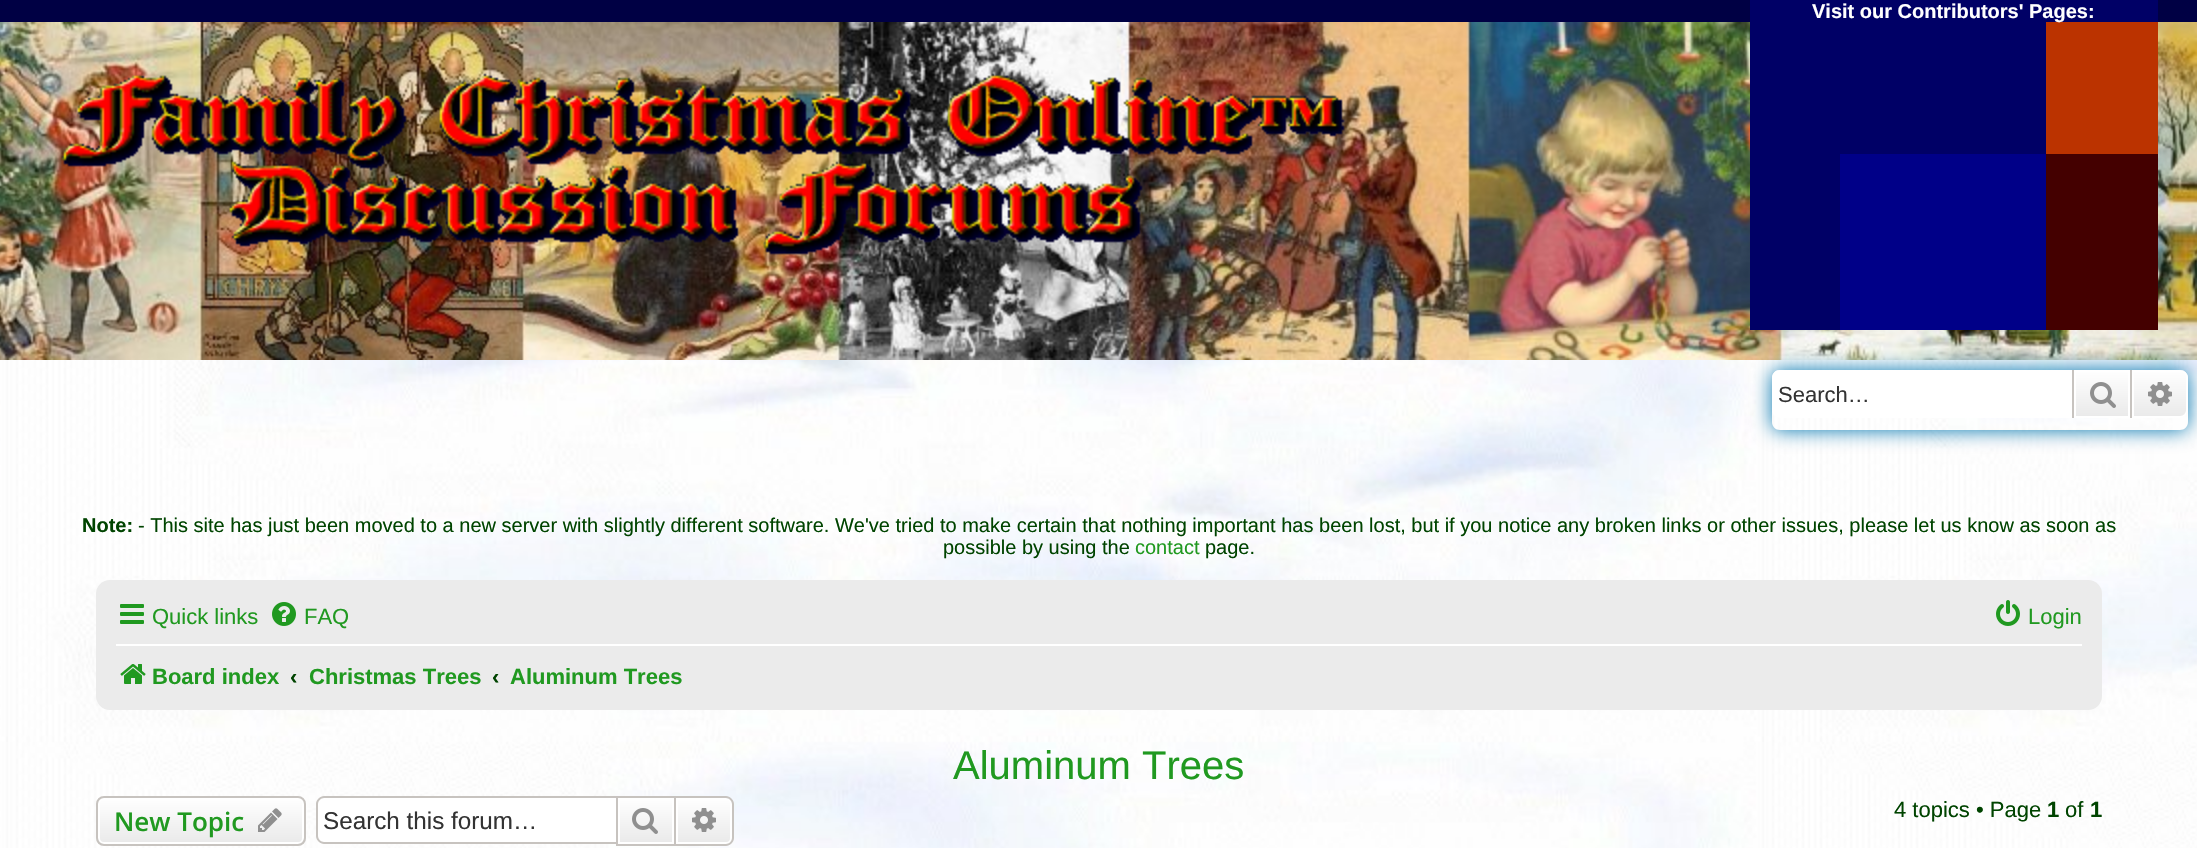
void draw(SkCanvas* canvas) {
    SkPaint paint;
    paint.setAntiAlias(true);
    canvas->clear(0xFFFFFFFF);
    canvas->drawImageRect(SkImages::DeferredFromEncodedData(SkData::MakeFromFileName("img1.png")), SkRect::MakeXYWH(0, 360, 2197, 488), SkSamplingOptions());
    paint.setColor(0xFF000044);
    canvas->drawRect(SkRect::MakeXYWH(0, 0, 2197, 22), paint);
    canvas->drawImageRect(SkImages::DeferredFromEncodedData(SkData::MakeFromFileName("img2.png")), SkRect::MakeXYWH(0, 22, 2197, 338), SkSamplingOptions());
    paint.setColor(0xFF000066);
    canvas->drawRect(SkRect::MakeXYWH(1750, 0, 408, 22), paint);
    canvas->drawRect(SkRect::MakeXYWH(1750, 22, 296, 132), paint);
    paint.setColor(0xFFBB3300);
    canvas->drawRect(SkRect::MakeXYWH(2046, 22, 112, 132), paint);
    SkFont font1(fontMgr->matchFamilyStyle("Liberation Sans", SkFontStyle::Bold()), 20);
    font1.setSubpixel(true);
    paint.setColor(0xFFFFFFFF);
    canvas->drawString("Visit our Contributors' Pages:", 1812, 18, font1, paint);
    canvas->drawImageRect(SkImages::DeferredFromEncodedData(SkData::MakeFromFileName("img3.png")), SkRect::MakeXYWH(61, 73, 1284, 182), SkSamplingOptions());
    paint.setColor(0xFF000066);
    canvas->drawRect(SkRect::MakeXYWH(1750, 154, 90, 176), paint);
    paint.setColor(0xFF000088);
    canvas->drawRect(SkRect::MakeXYWH(1840, 154, 206, 176), paint);
    paint.setColor(0xFF440000);
    canvas->drawRect(SkRect::MakeXYWH(2046, 154, 112, 176), paint);
    canvas->save();
    canvas->clipPath(SkPathBuilder(SkPathFillType::kEvenOdd).moveTo(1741, 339).lineTo(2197, 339).lineTo(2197, 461).lineTo(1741, 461).close().moveTo(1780, 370).lineTo(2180, 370).cubicTo(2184.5f, 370, 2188, 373.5f, 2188, 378).lineTo(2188, 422).cubicTo(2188, 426.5f, 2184.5f, 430, 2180, 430).lineTo(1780, 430).cubicTo(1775.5f, 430, 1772, 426.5f, 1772, 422).lineTo(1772, 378).cubicTo(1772, 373.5f, 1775.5f, 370, 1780, 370).close().detach(), true);
    paint.setColor(0xFF0075B0);
    paint.setMaskFilter(SkMaskFilter::MakeBlur(kNormal_SkBlurStyle, 10));
    canvas->drawRoundRect(SkRect::MakeXYWH(1772, 370, 416, 60), 8, 8, paint);
    paint.setMaskFilter(nullptr);
    canvas->restore();
    paint.setColor(0xFFFFFFFF);
    canvas->drawPath(SkPathBuilder().moveTo(1780, 370).lineTo(2072, 370).lineTo(2072, 418).lineTo(1780, 418).cubicTo(1775.5f, 418, 1772, 414.5f, 1772, 410).lineTo(1772, 378).cubicTo(1772, 373.5f, 1775.5f, 370, 1780, 370).close().detach(), paint);
    SkFont font2(fontMgr->matchFamilyStyle("Liberation Sans", SkFontStyle::Normal()), 22);
    font2.setSubpixel(true);
    paint.setColor(0xFF333333);
    canvas->drawString("Search…", 1778, 402, font2, paint);
    {
        const SkColor colors[] = {0xFFFFFFFF, 0xFFE9E9E9};
        const float stops[] = {0, 1};
        const SkPoint ends[] = {{2102, 370}, {2102, 418}};
        paint.setShader(SkGradientShader::MakeLinear(ends, colors, stops, 2, SkTileMode::kClamp));
        paint.setAlpha(255);
    }
    canvas->drawRect(SkRect::MakeXYWH(2076, 372, 52, 44), paint);
    paint.setStyle(SkPaint::kStroke_Style);
    paint.setStrokeWidth(2);
    paint.setShader(nullptr);
    paint.setColor(0xFFFFFFFF);
    canvas->drawRect(SkRect::MakeXYWH(2075, 371, 54, 46), paint);
    paint.setStyle(SkPaint::kFill_Style);
    paint.setColor(0xFFC7C3BF);
    canvas->drawRect(SkRect::MakeXYWH(2130, 370, 2, 48), paint);
    canvas->drawRect(SkRect::MakeXYWH(2072, 370, 2, 48), paint);
    canvas->drawImageRect(SkImages::DeferredFromEncodedData(SkData::MakeFromFileName("img4.png")), SkRect::MakeXYWH(2090, 382, 26, 26), SkSamplingOptions());
    {
        const SkColor colors[] = {0xFFFFFFFF, 0xFFE9E9E9};
        const float stops[] = {0, 1};
        const SkPoint ends[] = {{2160, 370}, {2160, 418}};
        paint.setShader(SkGradientShader::MakeLinear(ends, colors, stops, 2, SkTileMode::kClamp));
        paint.setAlpha(255);
    }
    canvas->drawPath(SkPathBuilder().moveTo(2133, 371).lineTo(2180, 371).cubicTo(2184, 371, 2187, 374, 2187, 378).lineTo(2187, 410).cubicTo(2187, 414, 2184, 417, 2180, 417).lineTo(2133, 417).close().detach(), paint);
    paint.setStyle(SkPaint::kStroke_Style);
    paint.setShader(nullptr);
    paint.setColor(0xFFFFFFFF);
    canvas->drawPath(SkPathBuilder().moveTo(2133, 371).lineTo(2180, 371).cubicTo(2184, 371, 2187, 374, 2187, 378).lineTo(2187, 410).cubicTo(2187, 414, 2184, 417, 2180, 417).lineTo(2133, 417).close().detach(), paint);
    canvas->drawImageRect(SkImages::DeferredFromEncodedData(SkData::MakeFromFileName("img5.png")), SkRect::MakeXYWH(2148, 382, 24, 24), SkSamplingOptions());
    paint.setStyle(SkPaint::kFill_Style);
    paint.setColor(0xFF004400);
    canvas->drawString("Note:", 82, 532, font1, paint);
    SkFont font3(fontMgr->matchFamilyStyle("Liberation Sans", SkFontStyle::Normal()), 20);
    font3.setSubpixel(true);
    canvas->drawString("- This site has just been moved to a new server with slightly different software. We've tried to make certain that nothing important has been lost, but if you notice any broken links or other issues, please let us know as soon as", 138, 532, font3, paint);
    canvas->drawString("possible by using the", 943, 554, font3, paint);
    paint.setColor(0xFF209920);
    canvas->drawString("contact", 1135, 554, font3, paint);
    paint.setColor(0xFF004400);
    canvas->drawString("page.", 1205, 554, font3, paint);
    paint.setColor(0xFFEBEBEB);
    canvas->drawRoundRect(SkRect::MakeXYWH(96, 580, 2006, 130), 14, 14, paint);
    canvas->drawImageRect(SkImages::DeferredFromEncodedData(SkData::MakeFromFileName("img6.png")), SkRect::MakeXYWH(120, 604, 24, 20), SkSamplingOptions());
    paint.setColor(0xFF209920);
    canvas->drawString("Quick links", 152, 624, font2, paint);
    canvas->drawImageRect(SkImages::DeferredFromEncodedData(SkData::MakeFromFileName("img7.png")), SkRect::MakeXYWH(272, 602, 24, 24), SkSamplingOptions());
    canvas->drawString("FAQ", 304, 624, font2, paint);
    canvas->drawImageRect(SkImages::DeferredFromEncodedData(SkData::MakeFromFileName("img8.png")), SkRect::MakeXYWH(1996, 600, 24, 26), SkSamplingOptions());
    canvas->drawString("Login", 2028, 624, font2, paint);
    paint.setColor(0xFFFFFFFF);
    canvas->drawRect(SkRect::MakeXYWH(116, 644, 1966, 2), paint);
    canvas->drawImageRect(SkImages::DeferredFromEncodedData(SkData::MakeFromFileName("img9.png")), SkRect::MakeXYWH(120, 664, 26, 20), SkSamplingOptions());
    SkFont font4(fontMgr->matchFamilyStyle("Liberation Sans", SkFontStyle::Bold()), 22);
    font4.setSubpixel(true);
    paint.setColor(0xFF209920);
    canvas->drawString("Board index", 152, 684, font4, paint);
    paint.setColor(0xFF004400);
    canvas->drawString("‹", 290, 684, font4, paint);
    paint.setColor(0xFF209920);
    canvas->drawString("Christmas Trees", 309, 684, font4, paint);
    paint.setColor(0xFF004400);
    canvas->drawString("‹", 492, 684, font4, paint);
    paint.setColor(0xFF209920);
    canvas->drawString("Aluminum Trees", 510, 684, font4, paint);
    SkFont font5(fontMgr->matchFamilyStyle("Liberation Sans", SkFontStyle::Normal()), 40);
    font5.setSubpixel(true);
    canvas->drawString("Aluminum Trees", 953, 779, font5, paint);
    canvas->save();
    canvas->clipPath(SkPathBuilder().moveTo(104, 796).lineTo(298, 796).cubicTo(302.5f, 796, 306, 799.5f, 306, 804).lineTo(306, 838).cubicTo(306, 842.5f, 302.5f, 846, 298, 846).lineTo(104, 846).cubicTo(99.5f, 846, 96, 842.5f, 96, 838).lineTo(96, 804).cubicTo(96, 799.5f, 99.5f, 796, 104, 796).close().detach(), true);
    {
        const SkColor colors[] = {0xFFFFFFFF, 0xFFE9E9E9};
        const float stops[] = {0, 1};
        const SkPoint ends[] = {{201, 798}, {201, 844}};
        paint.setShader(SkGradientShader::MakeLinear(ends, colors, stops, 2, SkTileMode::kClamp));
        paint.setAlpha(255);
    }
    canvas->drawRect(SkRect::MakeXYWH(96, 798, 210, 46), paint);
    canvas->restore();
    paint.setStyle(SkPaint::kStroke_Style);
    paint.setShader(nullptr);
    paint.setColor(0xFFFFFFFF);
    canvas->drawRoundRect(SkRect::MakeXYWH(99, 799, 204, 44), 5, 5, paint);
    paint.setColor(0xFFC7C3BF);
    canvas->drawRoundRect(SkRect::MakeXYWH(97, 797, 208, 48), 7, 7, paint);
    SkFont font6(fontMgr->matchFamilyStyle("Open Sans", SkFontStyle(600, SkFontStyle::kNormal_Width, SkFontStyle::kUpright_Slant)), 26);
    font6.setSubpixel(true);
    paint.setStyle(SkPaint::kFill_Style);
    paint.setColor(0xFF209920);
    canvas->drawString("New Topic", 114, 831, font6, paint);
    canvas->drawImageRect(SkImages::DeferredFromEncodedData(SkData::MakeFromFileName("img10.png")), SkRect::MakeXYWH(258, 808, 24, 24), SkSamplingOptions());
    paint.setColor(0xFFFFFFFF);
    canvas->drawPath(SkPathBuilder().moveTo(324, 798).lineTo(616, 798).lineTo(616, 842).lineTo(324, 842).cubicTo(320.5f, 842, 318, 839.5f, 318, 836).lineTo(318, 804).cubicTo(318, 800.5f, 320.5f, 798, 324, 798).close().detach(), paint);
    paint.setColor(0xFFC7C3BF);
    canvas->drawPath(SkPathBuilder(SkPathFillType::kEvenOdd).moveTo(324, 796).lineTo(616, 796).lineTo(616, 844).lineTo(324, 844).cubicTo(320, 844, 316, 840, 316, 836).lineTo(316, 804).cubicTo(316, 800, 320, 796, 324, 796).close().moveTo(324, 798).lineTo(616, 798).lineTo(616, 842).lineTo(324, 842).cubicTo(321, 842, 318, 839, 318, 836).lineTo(318, 804).cubicTo(318, 801, 321, 798, 324, 798).close().detach(), paint);
    SkFont font7(fontMgr->matchFamilyStyle("Liberation Sans", SkFontStyle::Normal()), 24.25f);
    font7.setSubpixel(true);
    paint.setColor(0xFF333333);
    canvas->drawString("Search this forum…", 323, 829, font7, paint);
    {
        const SkColor colors[] = {0xFFFFFFFF, 0xFFE9E9E9};
        const float stops[] = {0, 1};
        const SkPoint ends[] = {{646, 798}, {646, 844}};
        paint.setShader(SkGradientShader::MakeLinear(ends, colors, stops, 2, SkTileMode::kClamp));
        paint.setAlpha(255);
    }
    canvas->drawRect(SkRect::MakeXYWH(620, 800, 52, 42), paint);
    paint.setStyle(SkPaint::kStroke_Style);
    paint.setShader(nullptr);
    paint.setColor(0xFFFFFFFF);
    canvas->drawRect(SkRect::MakeXYWH(619, 799, 54, 44), paint);
    paint.setColor(0xFFC7C3BF);
    canvas->drawRect(SkRect::MakeXYWH(617, 797, 58, 48), paint);
    canvas->drawImageRect(SkImages::DeferredFromEncodedData(SkData::MakeFromFileName("img11.png")), SkRect::MakeXYWH(632, 808, 26, 26), SkSamplingOptions());
    paint.setStyle(SkPaint::kFill_Style);
    {
        const SkColor colors[] = {0xFFFFFFFF, 0xFFE9E9E9};
        const float stops[] = {0, 1};
        const SkPoint ends[] = {{704, 798}, {704, 844}};
        paint.setShader(SkGradientShader::MakeLinear(ends, colors, stops, 2, SkTileMode::kClamp));
        paint.setAlpha(255);
    }
    canvas->drawPath(SkPathBuilder().moveTo(677, 799).lineTo(726, 799).cubicTo(729, 799, 731, 801, 731, 804).lineTo(731, 838).cubicTo(731, 841, 729, 843, 726, 843).lineTo(677, 843).close().detach(), paint);
    paint.setStyle(SkPaint::kStroke_Style);
    paint.setShader(nullptr);
    paint.setColor(0xFFFFFFFF);
    canvas->drawPath(SkPathBuilder().moveTo(677, 799).lineTo(726, 799).cubicTo(729, 799, 731, 801, 731, 804).lineTo(731, 838).cubicTo(731, 841, 729, 843, 726, 843).lineTo(677, 843).close().detach(), paint);
    paint.setStyle(SkPaint::kFill_Style);
    paint.setColor(0xFFC7C3BF);
    canvas->drawPath(SkPathBuilder(SkPathFillType::kEvenOdd).moveTo(676, 796).lineTo(726, 796).cubicTo(730, 796, 734, 800, 734, 804).lineTo(734, 838).cubicTo(734, 842, 730, 846, 726, 846).lineTo(676, 846).close().moveTo(676, 798).lineTo(726, 798).cubicTo(729, 798, 732, 801, 732, 804).lineTo(732, 838).cubicTo(732, 841, 729, 844, 726, 844).lineTo(676, 844).close().detach(), paint);
    canvas->drawImageRect(SkImages::DeferredFromEncodedData(SkData::MakeFromFileName("img12.png")), SkRect::MakeXYWH(692, 808, 24, 24), SkSamplingOptions());
    paint.setColor(0xFF004400);
    canvas->drawString("4 topics • Page", 1894, 817, font2, paint);
    canvas->drawString("1", 2047, 817, font4, paint);
    canvas->drawString("of", 2065, 817, font2, paint);
    canvas->drawString("1", 2090, 817, font4, paint);
}
